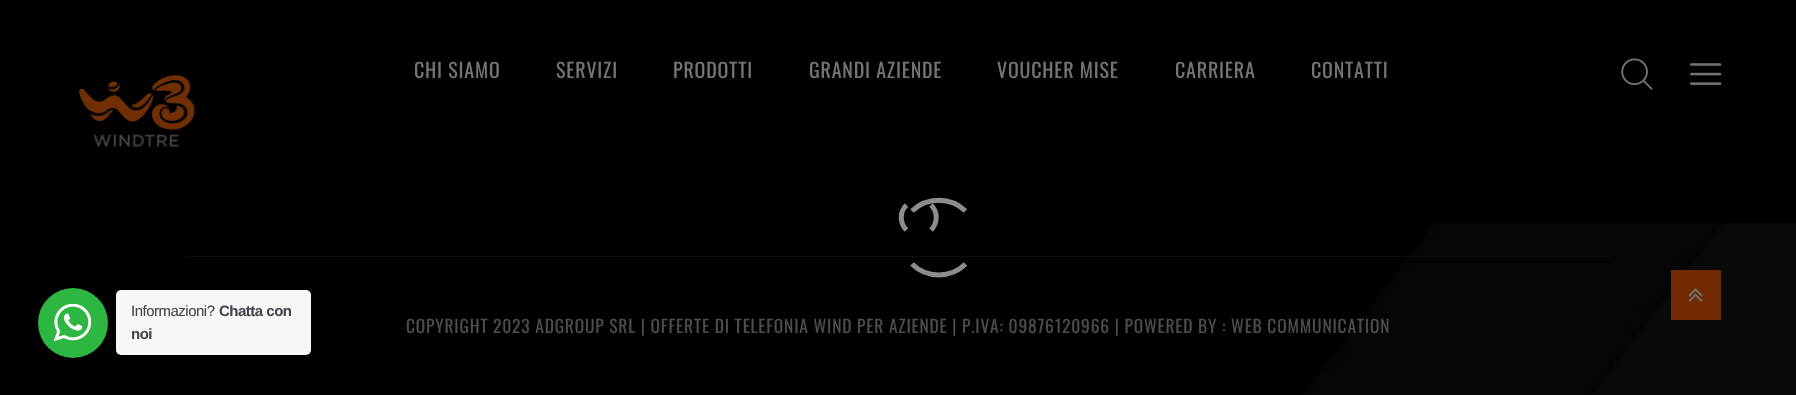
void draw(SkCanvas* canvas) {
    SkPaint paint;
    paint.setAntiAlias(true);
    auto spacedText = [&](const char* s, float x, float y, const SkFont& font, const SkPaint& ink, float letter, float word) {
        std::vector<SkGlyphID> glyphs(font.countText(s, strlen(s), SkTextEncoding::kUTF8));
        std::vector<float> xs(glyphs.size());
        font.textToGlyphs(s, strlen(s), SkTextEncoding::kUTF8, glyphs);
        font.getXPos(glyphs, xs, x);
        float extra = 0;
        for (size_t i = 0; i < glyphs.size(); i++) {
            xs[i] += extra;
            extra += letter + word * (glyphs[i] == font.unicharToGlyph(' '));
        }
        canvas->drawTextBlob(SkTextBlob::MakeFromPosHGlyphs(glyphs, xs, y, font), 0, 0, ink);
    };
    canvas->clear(0xFFFFFFFF);
    paint.setColor(0xFF000000);
    canvas->drawRect(SkRect::MakeXYWH(0, 0, 1796, 223), paint);
    SkFont font1(fontMgr->matchFamilyStyle("Oswald", SkFontStyle::Normal()), 20);
    font1.setSubpixel(true);
    paint.setColor(0xFF737373);
    spacedText("CHI SIAMO", 414, 78, font1, paint, 0.8f, 0);
    spacedText("SERVIZI", 556, 78, font1, paint, 0.8f, 0);
    spacedText("PRODOTTI", 673, 78, font1, paint, 0.8f, 0);
    spacedText("GRANDI AZIENDE", 809, 78, font1, paint, 0.8f, 0);
    spacedText("VOUCHER MISE", 997, 78, font1, paint, 0.8f, 0);
    spacedText("CARRIERA", 1175, 78, font1, paint, 0.8f, 0);
    spacedText("CONTATTI", 1311, 78, font1, paint, 0.8f, 0);
    canvas->drawImageRect(SkImages::DeferredFromEncodedData(SkData::MakeFromFileName("img1.png")), SkRect::MakeXYWH(1621, 58, 32, 32), SkSamplingOptions());
    canvas->drawImageRect(SkImages::DeferredFromEncodedData(SkData::MakeFromFileName("img2.png")), SkRect::MakeXYWH(1690, 63, 32, 22), SkSamplingOptions());
    canvas->drawImageRect(SkImages::DeferredFromEncodedData(SkData::MakeFromFileName("img3.png")), SkRect::MakeXYWH(78, 75, 118, 73), SkSamplingOptions());
    paint.setStyle(SkPaint::kStroke_Style);
    paint.setStrokeWidth(5);
    paint.setColor(0xFF8D8D8D);
    canvas->drawPath(SkPathBuilder().moveTo(912, 211).cubicTo(926.5f, 196.5f, 951, 196.5f, 965.5f, 211).detach(), paint);
    canvas->drawImageRect(SkImages::DeferredFromEncodedData(SkData::MakeFromFileName("img5.png")), SkRect::MakeXYWH(0, 223, 1796, 172), SkSamplingOptions());
    canvas->drawPath(SkPathBuilder().moveTo(965.5f, 264).cubicTo(951, 278.5f, 926.5f, 278.5f, 912, 264).detach(), paint);
    canvas->drawPath(SkPathBuilder().moveTo(931, 205).cubicTo(938, 212, 938, 223, 931, 230).moveTo(906.5f, 230).cubicTo(899.5f, 223, 899.5f, 212, 906.5f, 205).detach(), paint);
    paint.setStyle(SkPaint::kFill_Style);
    paint.setColor(0xFF2DB742);
    canvas->drawCircle(73, 323, 35, paint);
    canvas->drawImageRect(SkImages::DeferredFromEncodedData(SkData::MakeFromFileName("img4.png")), SkRect::MakeXYWH(54, 304, 37, 37), SkSamplingOptions());
    paint.setColor(0xFFF5F7F9);
    canvas->drawRoundRect(SkRect::MakeXYWH(116, 290, 195, 65), 5, 5, paint);
    SkFont font2(fontMgr->matchFamilyStyle("Liberation Sans", SkFontStyle::Normal()), 15);
    font2.setSubpixel(true);
    paint.setColor(0xFF43474E);
    spacedText("Informazioni?", 131, 316, font2, paint, -0.5f, 0);
    SkFont font3(fontMgr->matchFamilyStyle("Liberation Sans", SkFontStyle::Bold()), 15);
    font3.setSubpixel(true);
    spacedText("Chatta con", 219, 316, font3, paint, -0.5f, 0);
    spacedText("noi", 131, 339, font3, paint, -0.5f, 0);
    paint.setColor(0xFF0C0C0C);
    canvas->drawRect(SkRect::MakeXYWH(186, 256, 1425, 1), paint);
    SkFont font4(fontMgr->matchFamilyStyle("Oswald", SkFontStyle::Normal()), 17.5f);
    font4.setSubpixel(true);
    paint.setColor(0xFF4C4C4C);
    spacedText("COPYRIGHT 2023 ADGROUP SRL | OFFERTE DI TELEFONIA WIND PER AZIENDE | P.IVA: 09876120966 | POWERED BY : WEB COMMUNICATION", 406, 333, font4, paint, 0.8f, 0);
    paint.setColor(0xFF702C00);
    canvas->drawRect(SkRect::MakeXYWH(1671, 270, 50, 50), paint);
    canvas->drawImageRect(SkImages::DeferredFromEncodedData(SkData::MakeFromFileName("img6.png")), SkRect::MakeXYWH(1688, 288, 15, 14), SkSamplingOptions());
}
